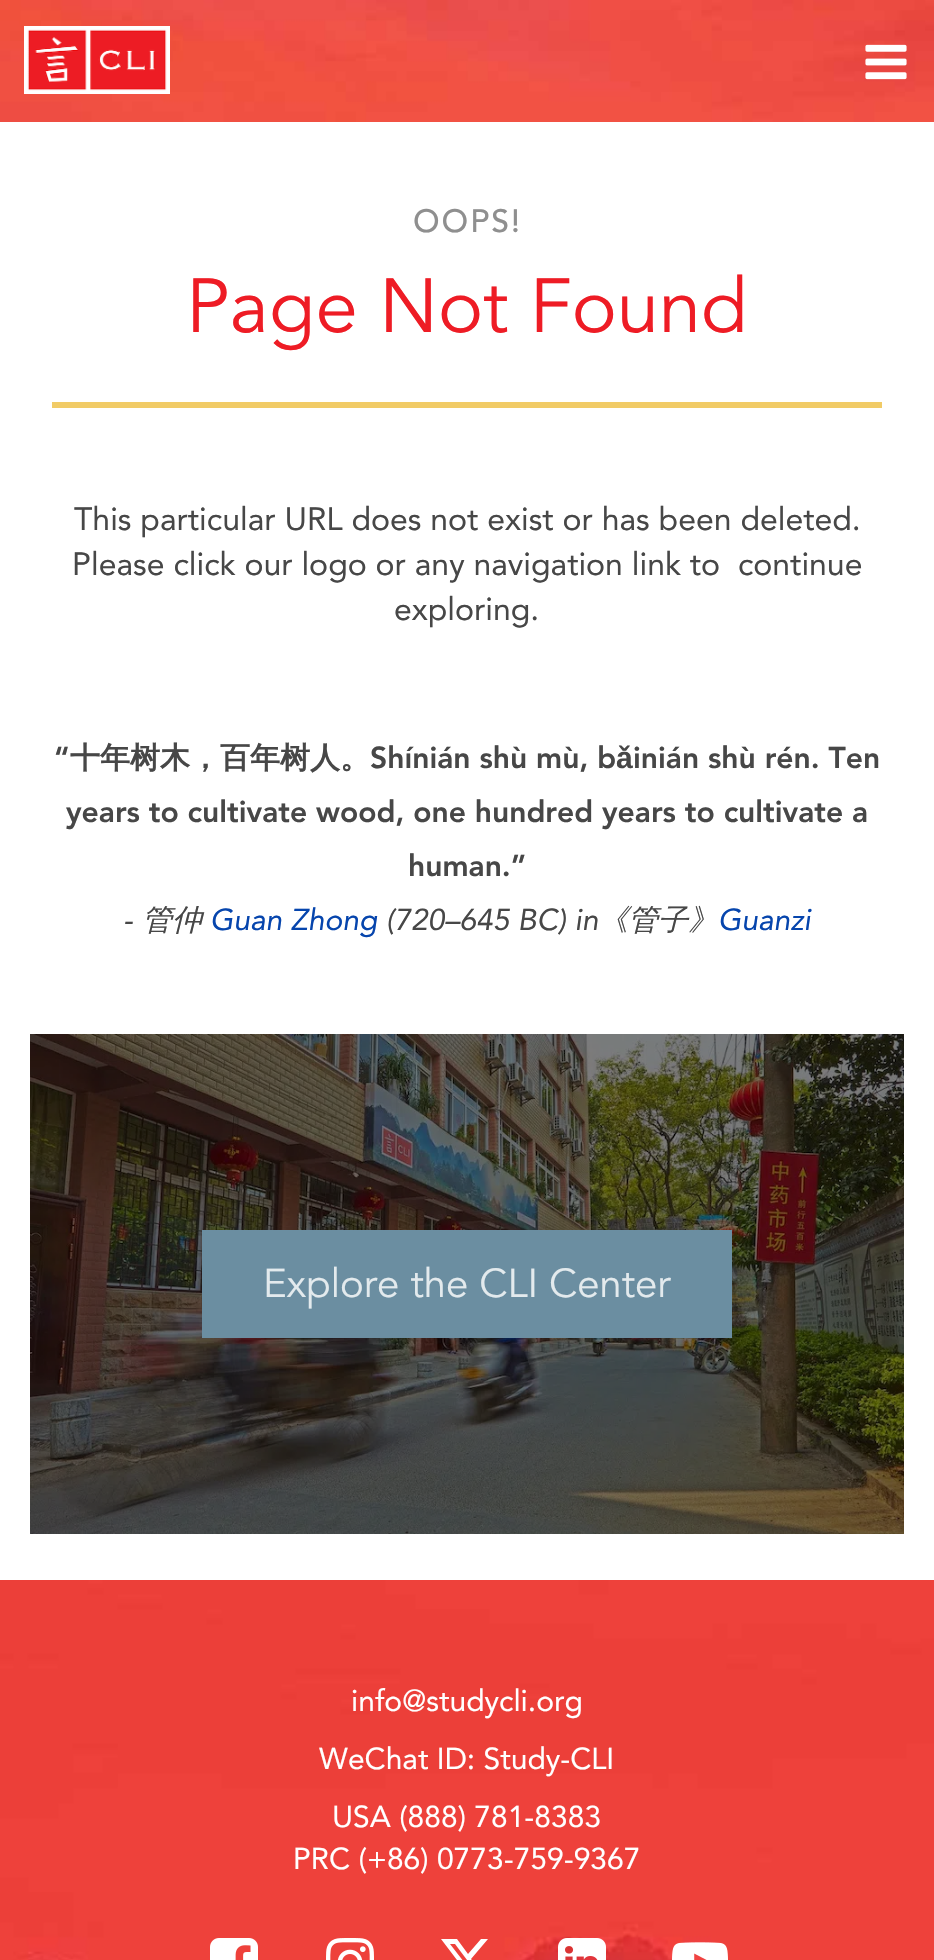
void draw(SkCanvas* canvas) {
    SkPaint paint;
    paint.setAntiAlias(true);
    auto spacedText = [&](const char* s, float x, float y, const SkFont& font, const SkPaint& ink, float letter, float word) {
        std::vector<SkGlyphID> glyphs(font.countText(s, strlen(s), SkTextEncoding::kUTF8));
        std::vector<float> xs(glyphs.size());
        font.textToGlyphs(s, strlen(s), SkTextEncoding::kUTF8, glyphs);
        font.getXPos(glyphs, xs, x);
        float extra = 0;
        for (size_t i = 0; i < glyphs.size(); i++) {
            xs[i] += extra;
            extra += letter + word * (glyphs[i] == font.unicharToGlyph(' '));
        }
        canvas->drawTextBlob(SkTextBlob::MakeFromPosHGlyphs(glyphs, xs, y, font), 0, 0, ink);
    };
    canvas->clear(0xFFFFFFFF);
    canvas->drawImageRect(SkImages::DeferredFromEncodedData(SkData::MakeFromFileName("img1.png")), SkRect::MakeXYWH(0, 0, 934, 122), SkSamplingOptions());
    canvas->drawImageRect(SkImages::DeferredFromEncodedData(SkData::MakeFromFileName("img2.png")), SkRect::MakeXYWH(24, 26, 146, 68), SkSamplingOptions());
    canvas->drawImageRect(SkImages::DeferredFromEncodedData(SkData::MakeFromFileName("img3.png")), SkRect::MakeXYWH(865, 44, 42, 36), SkSamplingOptions());
    SkFont font1(fontMgr->matchFamilyStyle("Avenir", SkFontStyle(500, SkFontStyle::kNormal_Width, SkFontStyle::kUpright_Slant)), 32);
    font1.setSubpixel(true);
    paint.setColor(0xFF8F8F8F);
    spacedText("OOPS!", 413, 232, font1, paint, 2, 0);
    SkFont font2(fontMgr->matchFamilyStyle("Avenir", SkFontStyle::Normal()), 76);
    font2.setSubpixel(true);
    paint.setColor(0xFFEE1C25);
    canvas->drawString("Page Not Found", 186, 332, font2, paint);
    paint.setColor(0xFFF1CB66);
    canvas->drawRect(SkRect::MakeXYWH(52, 402, 830, 6), paint);
    SkFont font3(fontMgr->matchFamilyStyle("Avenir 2", SkFontStyle::Normal()), 32);
    font3.setSubpixel(true);
    paint.setColor(0xFF474747);
    canvas->drawString("This particular URL does not exist or has been deleted.", 74, 530, font3, paint);
    canvas->drawString("Please click our logo or any navigation link to  continue", 72, 575, font3, paint);
    canvas->drawString("exploring.", 394, 620, font3, paint);
    SkFont font4(fontMgr->matchFamilyStyle("Avenir", SkFontStyle(900, SkFontStyle::kNormal_Width, SkFontStyle::kUpright_Slant)), 30);
    font4.setSubpixel(true);
    canvas->drawString("“", 54, 768, font4, paint);
    SkFont font5(fontMgr->matchFamilyStyle("WenQuanYi Zen Hei", SkFontStyle::Bold()), 30);
    font5.setSubpixel(true);
    canvas->drawString("十年树木，百年树人。", 70, 768, font5, paint);
    canvas->drawString("Shínián shù mù, b", 370, 768, font4, paint);
    SkFont font6(fontMgr->matchFamilyStyle("Liberation Sans", SkFontStyle::Bold()), 30);
    font6.setSubpixel(true);
    canvas->drawString("ǎ", 616, 768, font6, paint);
    canvas->drawString("inián shù rén. Ten", 633, 768, font4, paint);
    canvas->drawString("years to cultivate wood, one hundred years to cultivate a", 66, 822, font4, paint);
    canvas->drawString("human.”", 408, 876, font4, paint);
    SkFont font7(fontMgr->matchFamilyStyle("Avenir", SkFontStyle::Italic()), 30);
    font7.setSubpixel(true);
    canvas->drawString("-", 123, 930, font7, paint);
    SkFont font8(fontMgr->matchFamilyStyle("WenQuanYi Zen Hei", SkFontStyle(500, SkFontStyle::kNormal_Width, SkFontStyle::kItalic_Slant)), 30);
    font8.setSubpixel(true);
    canvas->drawString("管仲", 142, 930, font8, paint);
    paint.setColor(0xFF0645AD);
    canvas->drawString("Guan Zhong", 210, 930, font7, paint);
    paint.setColor(0xFF474747);
    canvas->drawString("(720–645 BC) in", 386, 930, font7, paint);
    canvas->drawString("《管子》", 598, 930, font8, paint);
    paint.setColor(0xFF0645AD);
    canvas->drawString("Guanzi", 718, 930, font7, paint);
    canvas->drawImageRect(SkImages::DeferredFromEncodedData(SkData::MakeFromFileName("img4.png")), SkRect::MakeXYWH(30, 1034, 874, 500), SkSamplingOptions());
    paint.setColor(0xFF3A4D58);
    canvas->drawRect(SkRect::MakeXYWH(202, 1230, 530, 108), paint);
    paint.setColor(0xCC779DB3);
    canvas->drawRect(SkRect::MakeXYWH(202, 1230, 530, 108), paint);
    SkFont font9(fontMgr->matchFamilyStyle("Avenir", SkFontStyle::Normal()), 40);
    font9.setSubpixel(true);
    paint.setColor(0xFFE3EAED);
    canvas->drawString("Explore the CLI Center", 263, 1297, font9, paint);
    canvas->drawImageRect(SkImages::DeferredFromEncodedData(SkData::MakeFromFileName("img5.png")), SkRect::MakeXYWH(0, 1580, 934, 380), SkSamplingOptions());
    SkFont font10(fontMgr->matchFamilyStyle("Avenir 2", SkFontStyle::Normal()), 30);
    font10.setSubpixel(true);
    paint.setColor(0xFFFFFFFF);
    canvas->drawString("info@studycli.org", 351, 1711, font10, paint);
    canvas->drawString("WeChat ID: Study-CLI", 319, 1769, font10, paint);
    canvas->drawString("USA (888) 781-8383", 332, 1827, font10, paint);
    canvas->drawString("PRC (+86) 0773-759-9367", 293, 1869, font10, paint);
    canvas->drawImageRect(SkImages::DeferredFromEncodedData(SkData::MakeFromFileName("img6.png")), SkRect::MakeXYWH(210, 1938, 48, 22), SkSamplingOptions());
    canvas->drawImageRect(SkImages::DeferredFromEncodedData(SkData::MakeFromFileName("img7.png")), SkRect::MakeXYWH(326, 1938, 48, 22), SkSamplingOptions());
    canvas->drawPath(SkPathBuilder().moveTo(481, 1939).lineTo(488, 1939).lineTo(471, 1959).lineTo(491, 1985).lineTo(476, 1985).lineTo(464, 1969).lineTo(450, 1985).lineTo(442, 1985).lineTo(460, 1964).lineTo(441, 1939).lineTo(457, 1939).lineTo(468, 1954).close().moveTo(478, 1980).lineTo(482, 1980).lineTo(455, 1944).lineTo(450, 1944).close().detach(), paint);
    canvas->drawImageRect(SkImages::DeferredFromEncodedData(SkData::MakeFromFileName("img8.png")), SkRect::MakeXYWH(558, 1938, 48, 22), SkSamplingOptions());
    canvas->drawImageRect(SkImages::DeferredFromEncodedData(SkData::MakeFromFileName("img9.png")), SkRect::MakeXYWH(672, 1942, 56, 18), SkSamplingOptions());
}
